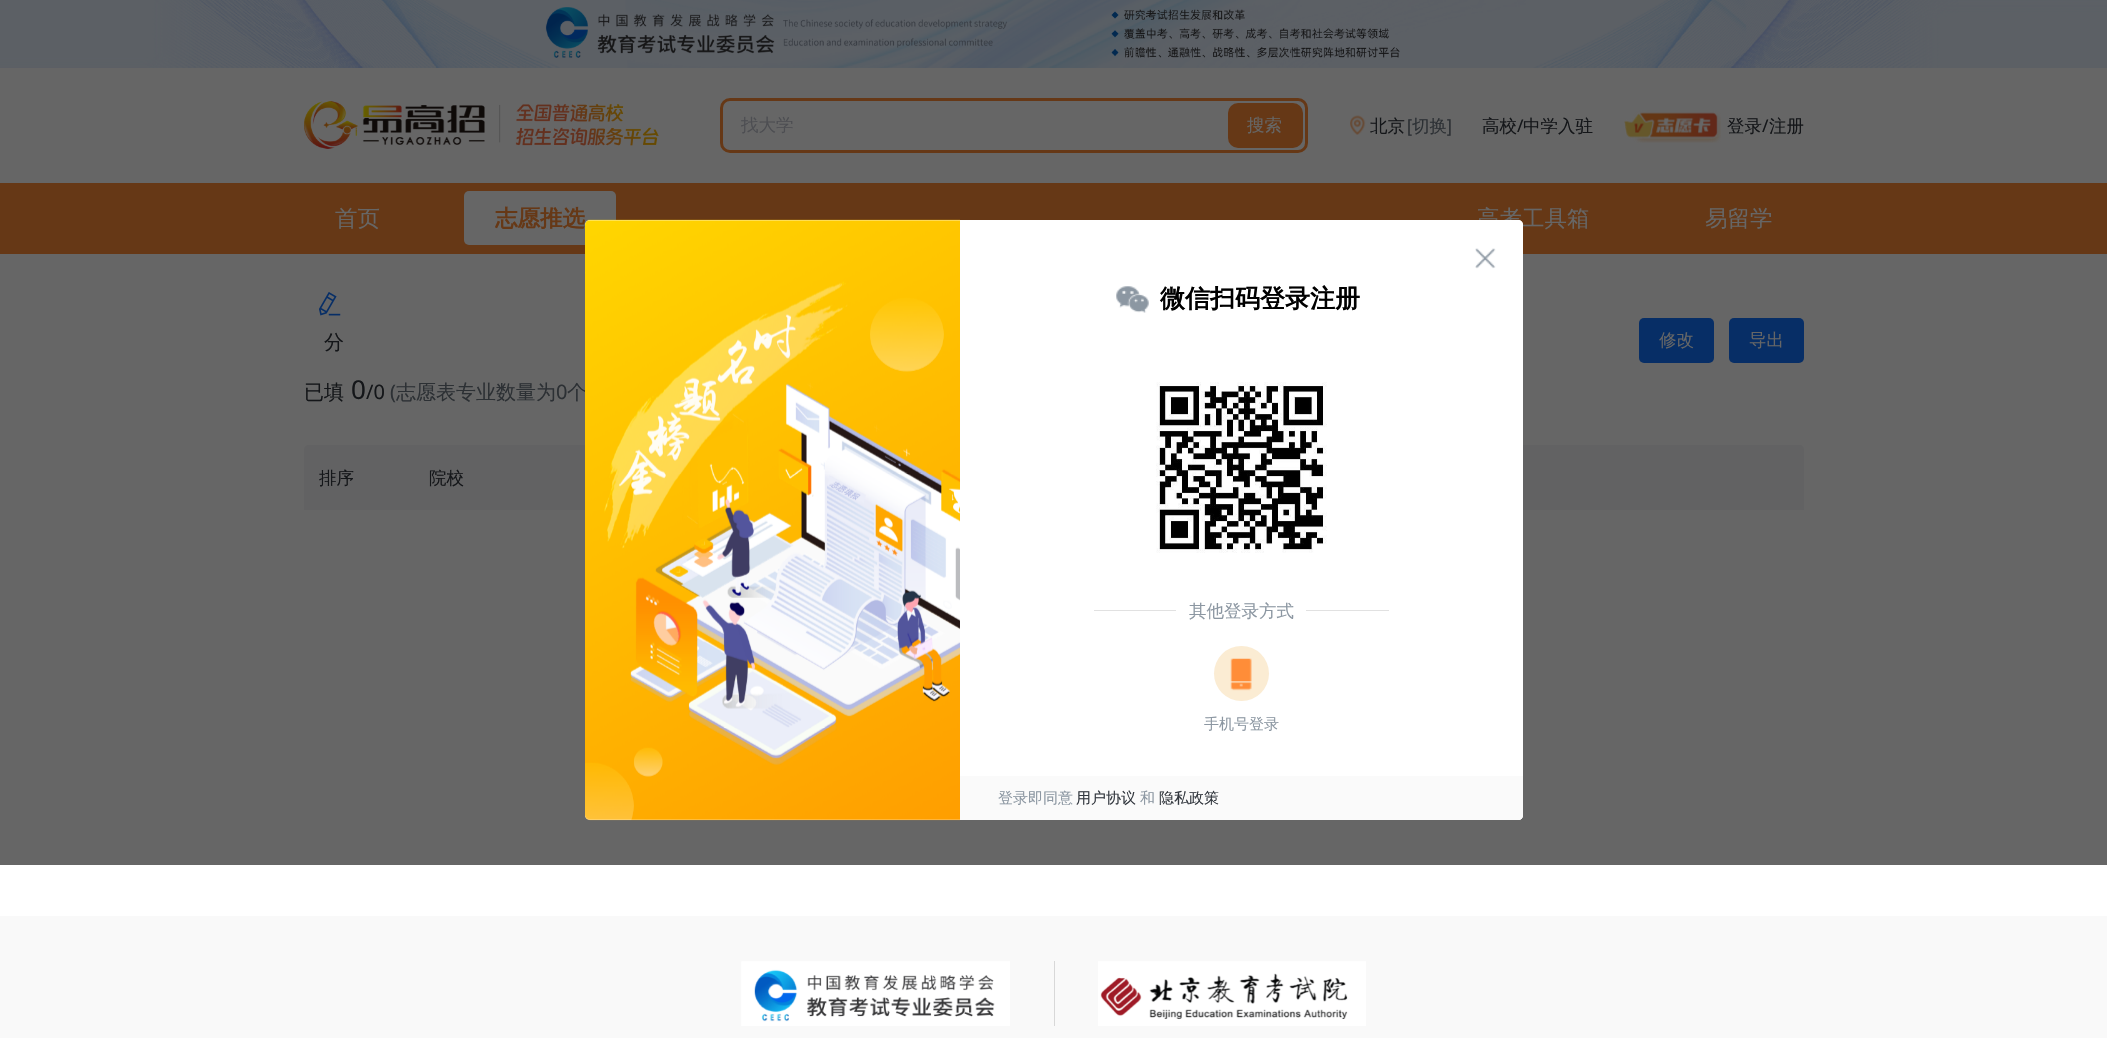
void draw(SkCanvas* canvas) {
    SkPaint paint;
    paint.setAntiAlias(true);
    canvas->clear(0xFFFFFFFF);
    paint.setColor(0xFF666666);
    canvas->drawRect(SkRect::MakeXYWH(0, 68, 2107, 797), paint);
    canvas->drawImageRect(SkImages::DeferredFromEncodedData(SkData::MakeFromFileName("img1.png")), SkRect::MakeXYWH(0, 0, 2107, 68), SkSamplingOptions());
    canvas->drawImageRect(SkImages::DeferredFromEncodedData(SkData::MakeFromFileName("img2.png")), SkRect::MakeXYWH(304, 101, 355, 48), SkSamplingOptions());
    paint.setStyle(SkPaint::kStroke_Style);
    paint.setStrokeWidth(3);
    paint.setColor(0xFF663816);
    canvas->drawRoundRect(SkRect::MakeXYWH(721.5f, 99.5f, 585, 52), 8.5f, 8.5f, paint);
    SkFont font1(fontMgr->matchFamilyStyle("WenQuanYi Zen Hei", SkFontStyle(500, SkFontStyle::kNormal_Width, SkFontStyle::kUpright_Slant)), 17.5f);
    font1.setSubpixel(true);
    paint.setStyle(SkPaint::kFill_Style);
    paint.setColor(0xFF4D4E52);
    canvas->drawString("找大学", 741, 131, font1, paint);
    paint.setColor(0xFF663816);
    canvas->drawRoundRect(SkRect::MakeXYWH(1228, 103, 75, 45), 10, 10, paint);
    paint.setColor(0xFF666666);
    canvas->drawString("搜索", 1247, 131, font1, paint);
    canvas->drawImageRect(SkImages::DeferredFromEncodedData(SkData::MakeFromFileName("img3.png")), SkRect::MakeXYWH(1350, 115, 16, 20), SkSamplingOptions());
    paint.setColor(0xFF141619);
    canvas->drawString("北京", 1370, 132, font1, paint);
    SkFont font2(fontMgr->matchFamilyStyle("Liberation Sans", SkFontStyle::Normal()), 17.5f);
    font2.setSubpixel(true);
    paint.setColor(0xFF2C3034);
    canvas->drawString("[", 1407, 132, font2, paint);
    canvas->drawString("切换", 1412, 132, font1, paint);
    canvas->drawString("]", 1447, 132, font2, paint);
    paint.setColor(0xFF141619);
    canvas->drawString("高校", 1482, 132, font1, paint);
    SkFont font3(fontMgr->matchFamilyStyle("Noto Sans", SkFontStyle::Normal()), 17.5f);
    font3.setSubpixel(true);
    canvas->drawString("/", 1517, 132, font3, paint);
    canvas->drawString("中学入驻", 1523, 132, font1, paint);
    canvas->drawImageRect(SkImages::DeferredFromEncodedData(SkData::MakeFromFileName("img4.png")), SkRect::MakeXYWH(1624, 110, 97, 33), SkSamplingOptions());
    canvas->drawString("登录", 1727, 132, font1, paint);
    canvas->drawString("/", 1762, 132, font3, paint);
    canvas->drawString("注册", 1769, 132, font1, paint);
    paint.setColor(0xFF663816);
    canvas->drawRect(SkRect::MakeXYWH(0, 183, 2107, 71), paint);
    SkFont font4(fontMgr->matchFamilyStyle("WenQuanYi Zen Hei", SkFontStyle(500, SkFontStyle::kNormal_Width, SkFontStyle::kUpright_Slant)), 22.5f);
    font4.setSubpixel(true);
    paint.setColor(0xFF666666);
    canvas->drawString("首页", 335, 226, font4, paint);
    canvas->drawRoundRect(SkRect::MakeXYWH(464, 191, 152, 54), 5, 5, paint);
    SkFont font5(fontMgr->matchFamilyStyle("WenQuanYi Zen Hei", SkFontStyle::Bold()), 22.5f);
    font5.setSubpixel(true);
    paint.setColor(0xFF663816);
    canvas->drawString("志愿推选", 495, 226, font5, paint);
    paint.setColor(0xFF666666);
    canvas->drawString("高考工具箱", 1477, 226, font4, paint);
    canvas->drawString("易留学", 1705, 226, font4, paint);
    SkFont font6(fontMgr->matchFamilyStyle("WenQuanYi Zen Hei", SkFontStyle(500, SkFontStyle::kNormal_Width, SkFontStyle::kUpright_Slant)), 20);
    font6.setSubpixel(true);
    paint.setColor(0xFF2C3034);
    canvas->drawString("个", 567, 399, font6, paint);
    paint.setColor(0xFF626263);
    canvas->drawPath(SkPathBuilder().moveTo(308, 445).lineTo(1800, 445).cubicTo(1802, 445, 1804, 447, 1804, 449).lineTo(1804, 510).lineTo(304, 510).lineTo(304, 449).cubicTo(304, 447, 306, 445, 308, 445).close().detach(), paint);
    paint.setColor(0xFFFFFFFF);
    canvas->drawRoundRect(SkRect::MakeXYWH(585, 220, 938, 600), 5, 5, paint);
    canvas->drawImageRect(SkImages::DeferredFromEncodedData(SkData::MakeFromFileName("img5.png")), SkRect::MakeXYWH(585, 219, 375, 602), SkSamplingOptions());
    canvas->drawPath(SkPathBuilder().moveTo(960, 220).lineTo(1518, 220).cubicTo(1521, 220, 1523, 222, 1523, 225).lineTo(1523, 815).cubicTo(1523, 818, 1521, 820, 1518, 820).lineTo(960, 820).close().detach(), paint);
    canvas->drawImageRect(SkImages::DeferredFromEncodedData(SkData::MakeFromFileName("img6.png")), SkRect::MakeXYWH(1475, 248, 21, 21), SkSamplingOptions());
    canvas->drawImageRect(SkImages::DeferredFromEncodedData(SkData::MakeFromFileName("img7.png")), SkRect::MakeXYWH(1116, 286, 33, 27), SkSamplingOptions());
    SkFont font7(fontMgr->matchFamilyStyle("WenQuanYi Zen Hei", SkFontStyle::Bold()), 25);
    font7.setSubpixel(true);
    paint.setColor(0xFF000000);
    canvas->drawString("微信扫码登录注册", 1160, 307, font7, paint);
    canvas->drawImageRect(SkImages::DeferredFromEncodedData(SkData::MakeFromFileName("img8.png")), SkRect::MakeXYWH(1156, 382, 171, 171), SkSamplingOptions());
    paint.setColor(0xFFE1E1E1);
    canvas->drawRect(SkRect::MakeXYWH(1094, 610, 82, 1), paint);
    paint.setColor(0xFF8C97A2);
    canvas->drawString("其他登录方式", 1189, 617, font1, paint);
    paint.setColor(0xFFE1E1E1);
    canvas->drawRect(SkRect::MakeXYWH(1306, 610, 83, 1), paint);
    paint.setColor(0xFFFBECD3);
    canvas->drawCircle(1241.5f, 673.5f, 27.5f, paint);
    canvas->drawImageRect(SkImages::DeferredFromEncodedData(SkData::MakeFromFileName("img9.png")), SkRect::MakeXYWH(1230, 658, 22, 33), SkSamplingOptions());
    SkFont font8(fontMgr->matchFamilyStyle("WenQuanYi Zen Hei", SkFontStyle(500, SkFontStyle::kNormal_Width, SkFontStyle::kUpright_Slant)), 15);
    font8.setSubpixel(true);
    paint.setColor(0xFF8C97A2);
    canvas->drawString("手机号登录", 1204, 729, font8, paint);
    paint.setColor(0xFFFAFAFA);
    canvas->drawPath(SkPathBuilder().moveTo(960, 776).lineTo(1523, 776).lineTo(1523, 815).cubicTo(1523, 818, 1521, 820, 1518, 820).lineTo(960, 820).close().detach(), paint);
    paint.setColor(0xFF8C97A2);
    canvas->drawString("登录即同意", 998, 803, font8, paint);
    paint.setColor(0xFF33383F);
    canvas->drawString("用户协议", 1076, 803, font8, paint);
    paint.setColor(0xFF8C97A2);
    canvas->drawString("和", 1140, 803, font8, paint);
    paint.setColor(0xFF33383F);
    canvas->drawString("隐私政策", 1159, 803, font8, paint);
    canvas->drawImageRect(SkImages::DeferredFromEncodedData(SkData::MakeFromFileName("img10.png")), SkRect::MakeXYWH(319, 292, 22, 24), SkSamplingOptions());
    paint.setColor(0xFF141619);
    canvas->drawString("分", 324, 349, font6, paint);
    canvas->drawString("已填", 304, 399, font6, paint);
    SkFont font9(fontMgr->matchFamilyStyle("Noto Sans", SkFontStyle::Normal()), 26);
    font9.setSubpixel(true);
    canvas->drawString("0", 351, 399, font9, paint);
    SkFont font10(fontMgr->matchFamilyStyle("Noto Sans", SkFontStyle::Normal()), 20);
    font10.setSubpixel(true);
    canvas->drawString("/0", 366, 399, font10, paint);
    paint.setColor(0xFF2C3034);
    canvas->drawString("(", 390, 399, font10, paint);
    canvas->drawString("志愿表专业数量为", 396, 399, font6, paint);
    canvas->drawString("0", 556, 399, font10, paint);
    paint.setColor(0xFF072E66);
    canvas->drawRoundRect(SkRect::MakeXYWH(1639, 318, 75, 45), 5, 5, paint);
    paint.setColor(0xFF666666);
    canvas->drawString("修改", 1659, 346, font1, paint);
    paint.setColor(0xFF072E66);
    canvas->drawRoundRect(SkRect::MakeXYWH(1729, 318, 75, 45), 5, 5, paint);
    paint.setColor(0xFF666666);
    canvas->drawString("导出", 1749, 346, font1, paint);
    paint.setColor(0xFF141619);
    canvas->drawString("排序", 319, 484, font1, paint);
    canvas->drawString("院校", 429, 484, font1, paint);
    paint.setColor(0xFFF9F9F9);
    canvas->drawRect(SkRect::MakeXYWH(0, 916, 2107, 122), paint);
    canvas->drawImageRect(SkImages::DeferredFromEncodedData(SkData::MakeFromFileName("img11.png")), SkRect::MakeXYWH(741, 961, 269, 65), SkSamplingOptions());
    paint.setColor(0xFFD8D8D8);
    canvas->drawRect(SkRect::MakeXYWH(1054, 961, 1, 65), paint);
    canvas->drawImageRect(SkImages::DeferredFromEncodedData(SkData::MakeFromFileName("img12.png")), SkRect::MakeXYWH(1098, 961, 268, 65), SkSamplingOptions());
}
